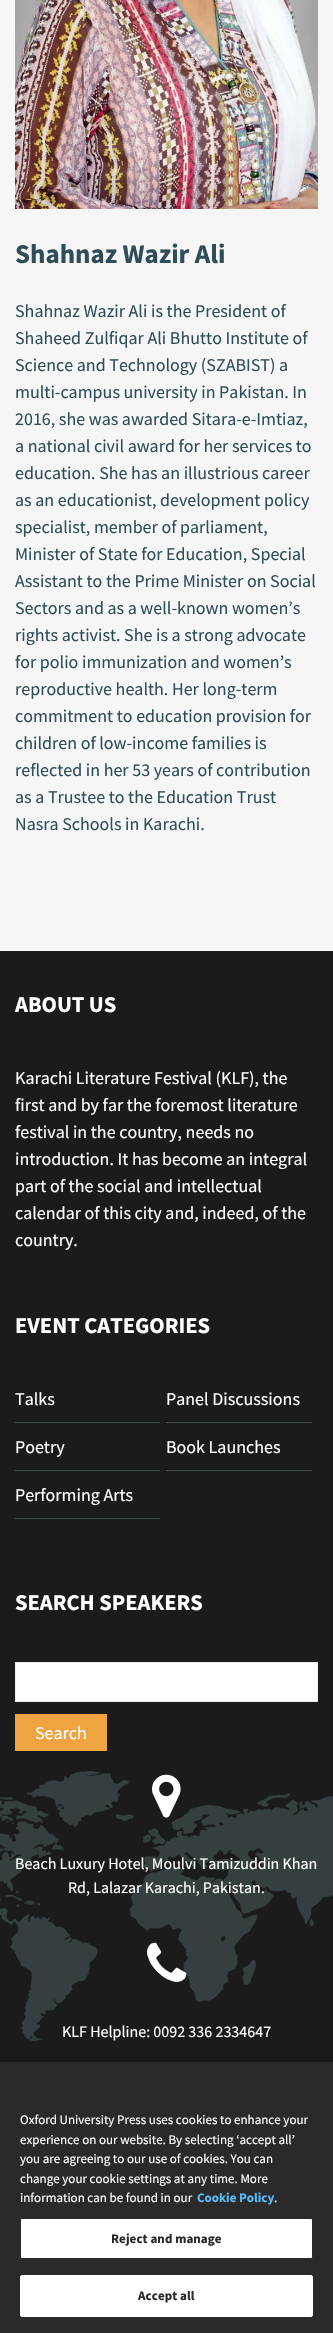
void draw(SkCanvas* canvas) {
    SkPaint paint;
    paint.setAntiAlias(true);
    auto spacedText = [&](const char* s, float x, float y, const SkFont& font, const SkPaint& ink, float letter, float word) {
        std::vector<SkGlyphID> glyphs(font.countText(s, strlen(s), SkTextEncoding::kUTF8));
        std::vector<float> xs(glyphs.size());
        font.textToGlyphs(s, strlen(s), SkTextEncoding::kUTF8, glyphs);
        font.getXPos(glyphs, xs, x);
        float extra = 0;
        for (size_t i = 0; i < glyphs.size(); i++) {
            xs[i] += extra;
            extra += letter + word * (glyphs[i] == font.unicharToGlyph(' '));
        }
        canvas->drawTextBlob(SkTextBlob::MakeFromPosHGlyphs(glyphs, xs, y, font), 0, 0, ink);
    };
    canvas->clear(0xFFF6F6F6);
    canvas->drawImageRect(SkImages::DeferredFromEncodedData(SkData::MakeFromFileName("img1.png")), SkRect::MakeXYWH(15, 0, 303, 209), SkSamplingOptions());
    SkFont font1(fontMgr->matchFamilyStyle("Source Sans Pro", SkFontStyle::Bold()), 27);
    font1.setSubpixel(true);
    paint.setColor(0xFF2F4D59);
    canvas->drawString("Shahnaz Wazir Ali", 15, 263, font1, paint);
    SkFont font2(fontMgr->matchFamilyStyle("Source Sans Pro", SkFontStyle::Normal()), 18);
    font2.setSubpixel(true);
    canvas->drawString("Shahnaz Wazir Ali is the President of", 15, 317, font2, paint);
    canvas->drawString("Shaheed Zulfiqar Ali Bhutto Institute of", 15, 344, font2, paint);
    canvas->drawString("Science and Technology (SZABIST) a", 15, 371, font2, paint);
    canvas->drawString("multi-campus university in Pakistan. In", 15, 398, font2, paint);
    canvas->drawString("2016, she was awarded Sitara-e-Imtiaz,", 15, 425, font2, paint);
    canvas->drawString("a national civil award for her services to", 15, 452, font2, paint);
    canvas->drawString("education. She has an illustrious career", 15, 479, font2, paint);
    canvas->drawString("as an educationist, development policy", 15, 506, font2, paint);
    canvas->drawString("specialist, member of parliament,", 15, 533, font2, paint);
    canvas->drawString("Minister of State for Education, Special", 15, 560, font2, paint);
    canvas->drawString("Assistant to the Prime Minister on Social", 15, 587, font2, paint);
    canvas->drawString("Sectors and as a well-known women’s", 15, 614, font2, paint);
    canvas->drawString("rights activist. She is a strong advocate", 15, 641, font2, paint);
    canvas->drawString("for polio immunization and women’s", 15, 668, font2, paint);
    canvas->drawString("reproductive health. Her long-term", 15, 695, font2, paint);
    canvas->drawString("commitment to education provision for", 15, 722, font2, paint);
    canvas->drawString("children of low-income families is", 15, 749, font2, paint);
    canvas->drawString("reflected in her 53 years of contribution", 15, 776, font2, paint);
    canvas->drawString("as a Trustee to the Education Trust", 15, 803, font2, paint);
    canvas->drawString("Nasra Schools in Karachi.", 15, 830, font2, paint);
    paint.setColor(0xFF1B1B1B);
    canvas->drawRect(SkRect::MakeXYWH(0, 951, 333, 1111), paint);
    SkFont font3(fontMgr->matchFamilyStyle("Source Sans Pro", SkFontStyle::Bold()), 22.5f);
    font3.setSubpixel(true);
    paint.setColor(0xFFFFFFFF);
    canvas->drawString("ABOUT US", 15, 1012, font3, paint);
    canvas->drawString("Karachi Literature Festival (KLF), the", 15, 1084, font2, paint);
    canvas->drawString("first and by far the foremost literature", 15, 1111, font2, paint);
    canvas->drawString("festival in the country, needs no", 15, 1138, font2, paint);
    canvas->drawString("introduction. It has become an integral", 15, 1165, font2, paint);
    canvas->drawString("part of the social and intellectual", 15, 1192, font2, paint);
    canvas->drawString("calendar of this city and, indeed, of the", 15, 1219, font2, paint);
    canvas->drawString("country.", 15, 1246, font2, paint);
    canvas->drawString("EVENT CATEGORIES", 15, 1333, font3, paint);
    paint.setColor(0xFF414C4D);
    canvas->drawRect(SkRect::MakeXYWH(15, 1422, 145, 1), paint);
    paint.setColor(0xFFFFFFFF);
    canvas->drawString("Talks", 15, 1405, font2, paint);
    paint.setColor(0xFF414C4D);
    canvas->drawRect(SkRect::MakeXYWH(166, 1422, 146, 1), paint);
    paint.setColor(0xFFFFFFFF);
    canvas->drawString("Panel Discussions", 166, 1405, font2, paint);
    paint.setColor(0xFF414C4D);
    canvas->drawRect(SkRect::MakeXYWH(15, 1470, 145, 1), paint);
    paint.setColor(0xFFFFFFFF);
    canvas->drawString("Poetry", 15, 1453, font2, paint);
    paint.setColor(0xFF414C4D);
    canvas->drawRect(SkRect::MakeXYWH(166, 1470, 146, 1), paint);
    paint.setColor(0xFFFFFFFF);
    canvas->drawString("Book Launches", 166, 1453, font2, paint);
    paint.setColor(0xFF414C4D);
    canvas->drawRect(SkRect::MakeXYWH(15, 1518, 145, 1), paint);
    paint.setColor(0xFFFFFFFF);
    canvas->drawString("Performing Arts", 15, 1501, font2, paint);
    canvas->drawString("SEARCH SPEAKERS", 15, 1610, font3, paint);
    canvas->drawRect(SkRect::MakeXYWH(15.5f, 1662.5f, 302, 39), paint);
    paint.setStyle(SkPaint::kStroke_Style);
    paint.setStrokeWidth(1);
    paint.setColor(0xFFEDEDED);
    canvas->drawRect(SkRect::MakeXYWH(15.5f, 1662.5f, 302, 39), paint);
    paint.setStyle(SkPaint::kFill_Style);
    paint.setColor(0xFFF0A441);
    canvas->drawRect(SkRect::MakeXYWH(15, 1714, 92, 37), paint);
    paint.setColor(0xFFFFFFFF);
    canvas->drawString("Search", 35, 1739, font2, paint);
    canvas->drawImageRect(SkImages::DeferredFromEncodedData(SkData::MakeFromFileName("img2.png")), SkRect::MakeXYWH(0, 1771, 333, 270), SkSamplingOptions());
    canvas->drawImageRect(SkImages::DeferredFromEncodedData(SkData::MakeFromFileName("img3.png")), SkRect::MakeXYWH(152, 1774, 29, 44), SkSamplingOptions());
    SkFont font4(fontMgr->matchFamilyStyle("Source Sans Pro", SkFontStyle::Normal()), 16);
    font4.setSubpixel(true);
    canvas->drawString("Beach Luxury Hotel, Moulvi Tamizuddin Khan", 15, 1869, font4, paint);
    canvas->drawString("Rd, Lalazar Karachi, Pakistan.", 68, 1893, font4, paint);
    canvas->drawImageRect(SkImages::DeferredFromEncodedData(SkData::MakeFromFileName("img4.png")), SkRect::MakeXYWH(147, 1942, 40, 40), SkSamplingOptions());
    canvas->drawString("KLF Helpline: 0092 336 2334647", 62, 2037, font4, paint);
    paint.setColor(0x33000000);
    paint.setMaskFilter(SkMaskFilter::MakeBlur(kNormal_SkBlurStyle, 9));
    canvas->drawRect(SkRect::MakeXYWH(0, 2062, 333, 271), paint);
    paint.setMaskFilter(nullptr);
    paint.setColor(0xFF2A2A2A);
    canvas->drawRect(SkRect::MakeXYWH(0, 2062, 333, 271), paint);
    SkFont font5(fontMgr->matchFamilyStyle("Source Sans Pro", SkFontStyle::Normal()), 13);
    font5.setSubpixel(true);
    paint.setColor(0xFFFFFFFF);
    canvas->drawString("Oxford University Press uses cookies to enhance your", 20, 2124, font5, paint);
    canvas->drawString("experience on our website. By selecting ‘accept all’", 20, 2144, font5, paint);
    canvas->drawString("you are agreeing to our use of cookies. You can", 20, 2163, font5, paint);
    canvas->drawString("change your cookie settings at any time. More", 20, 2183, font5, paint);
    canvas->drawString("information can be found in our", 20, 2202, font5, paint);
    SkFont font6(fontMgr->matchFamilyStyle("Source Sans Pro", SkFontStyle::Bold()), 13);
    font6.setSubpixel(true);
    paint.setColor(0xFF56B9F8);
    canvas->drawString("Cookie Policy", 197, 2202, font6, paint);
    paint.setColor(0xFFFFFFFF);
    canvas->drawString(".", 274, 2202, font5, paint);
    canvas->drawRoundRect(SkRect::MakeXYWH(20.5f, 2218.5f, 292, 40), 1.5f, 1.5f, paint);
    paint.setStyle(SkPaint::kStroke_Style);
    paint.setColor(0xFF2A2A2A);
    canvas->drawRoundRect(SkRect::MakeXYWH(20.5f, 2218.5f, 292, 40), 1.5f, 1.5f, paint);
    paint.setStyle(SkPaint::kFill_Style);
    spacedText("Reject and manage", 111, 2243, font6, paint, 0.1f, 0);
    paint.setColor(0xFFFFFFFF);
    canvas->drawRoundRect(SkRect::MakeXYWH(20.5f, 2275.5f, 292, 41), 1.5f, 1.5f, paint);
    paint.setStyle(SkPaint::kStroke_Style);
    canvas->drawRoundRect(SkRect::MakeXYWH(20.5f, 2275.5f, 292, 41), 1.5f, 1.5f, paint);
    paint.setStyle(SkPaint::kFill_Style);
    paint.setColor(0xFF2A2A2A);
    spacedText("Accept all", 138, 2300, font6, paint, 0.1f, 0);
}
